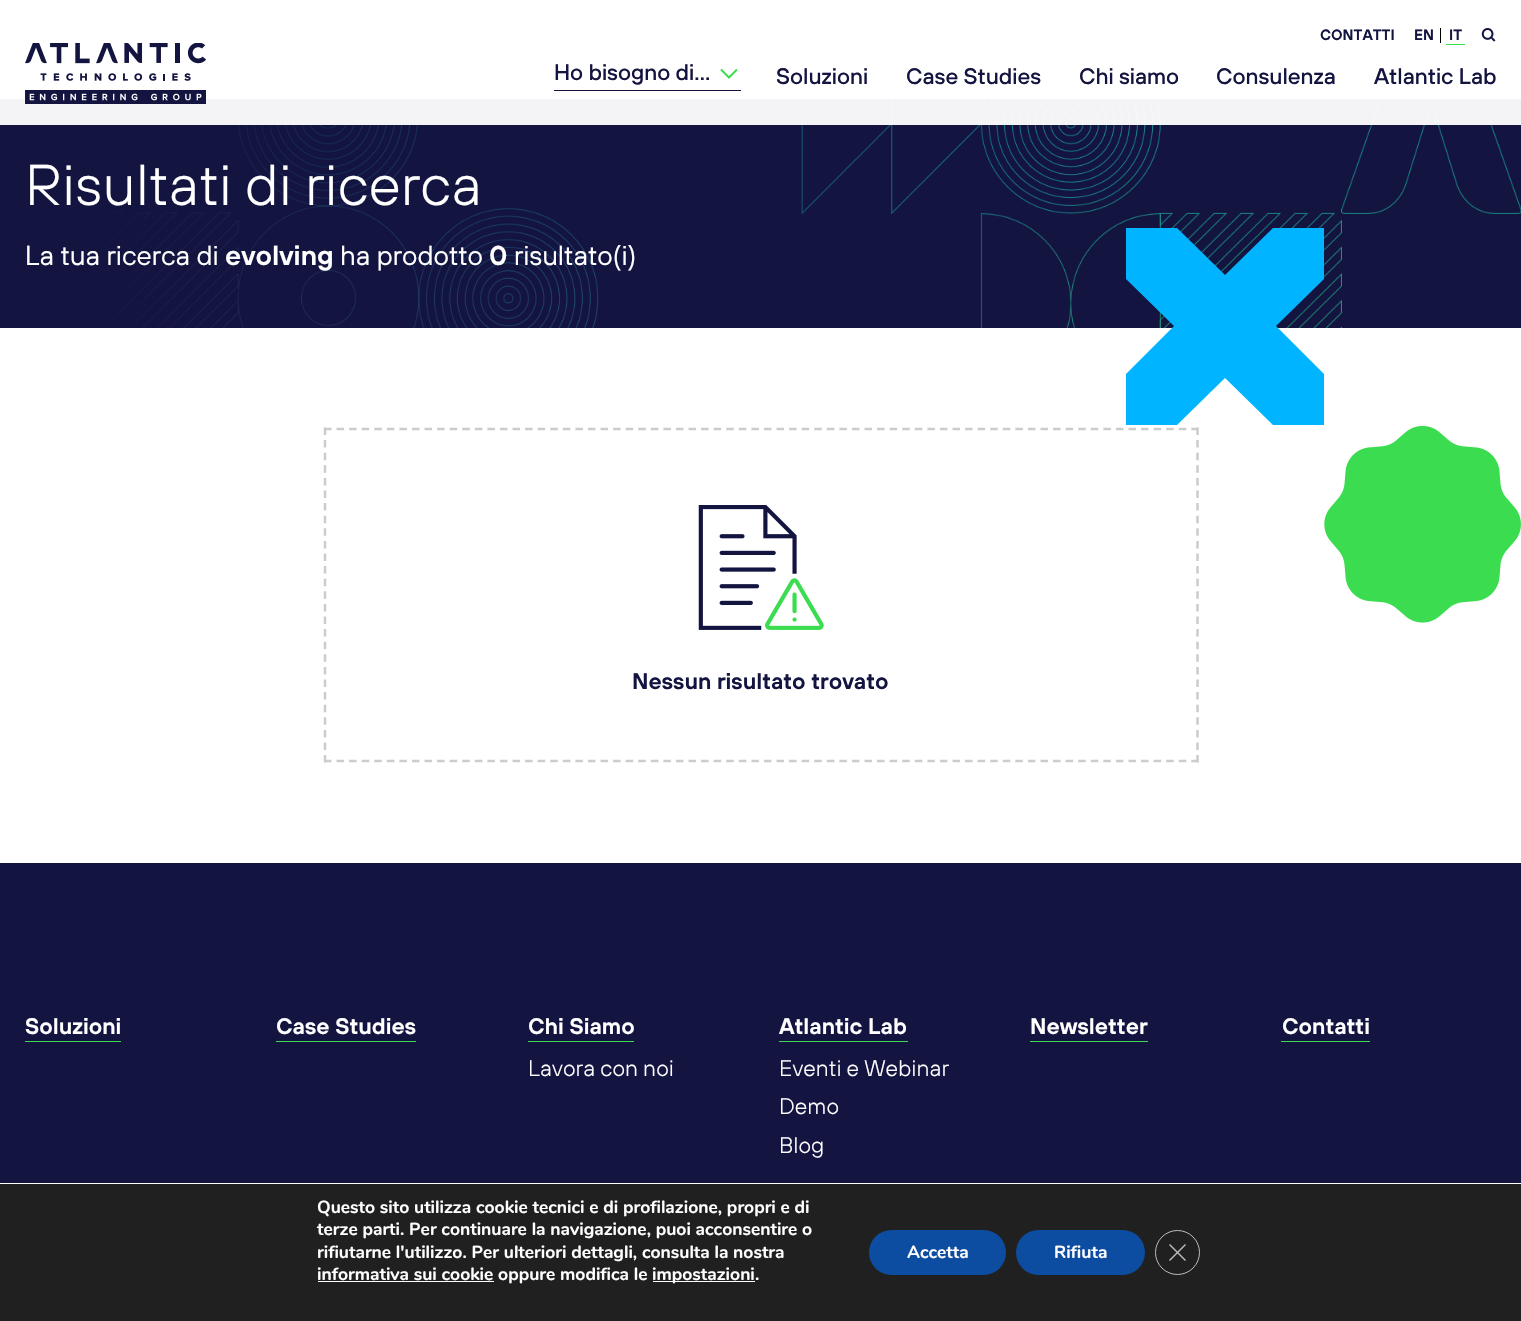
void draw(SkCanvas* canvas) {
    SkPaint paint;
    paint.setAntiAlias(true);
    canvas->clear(0xFFFFFFFF);
    canvas->drawImageRect(SkImages::DeferredFromEncodedData(SkData::MakeFromFileName("img3.png")), SkRect::MakeXYWH(0, 99, 1521, 229), SkSamplingOptions());
    paint.setColor(0xF2FFFFFF);
    canvas->drawRect(SkRect::MakeXYWH(0, 99, 1521, 26), paint);
    canvas->drawImageRect(SkImages::DeferredFromEncodedData(SkData::MakeFromFileName("img1.png")), SkRect::MakeXYWH(25, 43, 181, 61), SkSamplingOptions());
    SkFont font1(fontMgr->matchFamilyStyle("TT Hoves", SkFontStyle(600, SkFontStyle::kNormal_Width, SkFontStyle::kUpright_Slant)), 15);
    font1.setSubpixel(true);
    paint.setColor(0xFF141441);
    canvas->drawString("CONTATTI", 1320, 40, font1, paint);
    canvas->drawString("EN", 1414, 40, font1, paint);
    paint.setColor(0xFF000000);
    canvas->drawRect(SkRect::MakeXYWH(1440, 28, 1, 15), paint);
    paint.setColor(0xFF141441);
    canvas->drawString("IT", 1449, 40, font1, paint);
    paint.setColor(0xFF3CDC50);
    canvas->drawRect(SkRect::MakeXYWH(1446, 44, 19, 1), paint);
    canvas->drawImageRect(SkImages::DeferredFromEncodedData(SkData::MakeFromFileName("img2.png")), SkRect::MakeXYWH(1481, 28, 15, 14), SkSamplingOptions());
    paint.setColor(0xFF141441);
    canvas->drawRect(SkRect::MakeXYWH(554, 90, 187, 1), paint);
    SkFont font2(fontMgr->matchFamilyStyle("TT Hoves", SkFontStyle(500, SkFontStyle::kNormal_Width, SkFontStyle::kUpright_Slant)), 22.5f);
    font2.setSubpixel(true);
    canvas->drawString("Ho bisogno di…", 554, 80, font2, paint);
    paint.setStyle(SkPaint::kStroke_Style);
    paint.setStrokeWidth(2);
    paint.setColor(0xFF3CDC50);
    canvas->drawPath(SkPathBuilder().moveTo(721, 69.5f).lineTo(729, 77.5f).lineTo(737, 69.5f).detach(), paint);
    paint.setStyle(SkPaint::kFill_Style);
    paint.setColor(0xFF141441);
    canvas->drawString("Soluzioni", 776, 84, font2, paint);
    canvas->drawString("Case Studies", 906, 84, font2, paint);
    canvas->drawString("Chi siamo", 1079, 84, font2, paint);
    canvas->drawString("Consulenza", 1216, 84, font2, paint);
    canvas->drawString("Atlantic Lab", 1374, 84, font2, paint);
    SkFont font3(fontMgr->matchFamilyStyle("TT Hoves", SkFontStyle(300, SkFontStyle::kNormal_Width, SkFontStyle::kUpright_Slant)), 57.5f);
    font3.setSubpixel(true);
    paint.setColor(0xFFFFFFFF);
    canvas->drawString("Risultati di ricerca", 25, 205, font3, paint);
    SkFont font4(fontMgr->matchFamilyStyle("TT Hoves", SkFontStyle::Normal()), 27.5f);
    font4.setSubpixel(true);
    canvas->drawString("La tua ricerca di", 25, 265, font4, paint);
    SkFont font5(fontMgr->matchFamilyStyle("TT Hoves", SkFontStyle(600, SkFontStyle::kNormal_Width, SkFontStyle::kUpright_Slant)), 27.5f);
    font5.setSubpixel(true);
    canvas->drawString("evolving", 225, 265, font5, paint);
    canvas->drawString("ha prodotto", 340, 265, font4, paint);
    canvas->drawString("0", 489, 265, font5, paint);
    canvas->drawString("risultato(i)", 514, 265, font4, paint);
    paint.setColor(0xFF00B4FF);
    canvas->drawPath(SkPathBuilder().moveTo(1273, 228).lineTo(1225, 275).lineTo(1177, 228).lineTo(1126, 228).lineTo(1126, 279).lineTo(1174, 326).lineTo(1126, 374).lineTo(1126, 425).lineTo(1177, 425).lineTo(1225, 378).lineTo(1273, 425).lineTo(1324, 425).lineTo(1324, 374).lineTo(1276, 326).lineTo(1324, 279).lineTo(1324, 228).close().detach(), paint);
    canvas->drawImageRect(SkImages::DeferredFromEncodedData(SkData::MakeFromFileName("img4.png")), SkRect::MakeXYWH(1324, 426, 197, 197), SkSamplingOptions());
    paint.setStyle(SkPaint::kStroke_Style);
    paint.setStrokeWidth(2.5f);
    paint.setColor(0xFFCCCCCC);
    paint.setPathEffect(SkDashPathEffect::Make({{7.5f, 5.07f}}, 0));
    canvas->drawPath(SkPathBuilder().moveTo(324, 429).lineTo(1199, 429).detach(), paint);
    paint.setPathEffect(nullptr);
    paint.setPathEffect(SkDashPathEffect::Make({{7.5f, 5.1f}}, 0));
    canvas->drawPath(SkPathBuilder().moveTo(1197.5f, 427.5f).lineTo(1197.5f, 762.5f).detach(), paint);
    paint.setPathEffect(nullptr);
    paint.setPathEffect(SkDashPathEffect::Make({{7.5f, 5.07f}}, 0));
    canvas->drawPath(SkPathBuilder().moveTo(324, 761).lineTo(1199, 761).detach(), paint);
    paint.setPathEffect(nullptr);
    paint.setPathEffect(SkDashPathEffect::Make({{7.5f, 5.1f}}, 0));
    canvas->drawPath(SkPathBuilder().moveTo(325, 427.5f).lineTo(325, 762.5f).detach(), paint);
    paint.setPathEffect(nullptr);
    canvas->drawImageRect(SkImages::DeferredFromEncodedData(SkData::MakeFromFileName("img5.png")), SkRect::MakeXYWH(698, 505, 126, 125), SkSamplingOptions());
    SkFont font6(fontMgr->matchFamilyStyle("TT Hoves", SkFontStyle(600, SkFontStyle::kNormal_Width, SkFontStyle::kUpright_Slant)), 22.5f);
    font6.setSubpixel(true);
    paint.setStyle(SkPaint::kFill_Style);
    paint.setColor(0xFF141441);
    canvas->drawString("Nessun risultato trovato", 632, 689, font6, paint);
    canvas->drawRect(SkRect::MakeXYWH(0, 863, 1521, 320), paint);
    paint.setColor(0xFFFFFFFF);
    canvas->drawString("Soluzioni", 25, 1034, font6, paint);
    paint.setColor(0xFF3CDC50);
    canvas->drawRect(SkRect::MakeXYWH(25, 1041, 96, 1), paint);
    paint.setColor(0xFFFFFFFF);
    canvas->drawString("Case Studies", 276, 1034, font6, paint);
    paint.setColor(0xFF3CDC50);
    canvas->drawRect(SkRect::MakeXYWH(276, 1041, 140, 1), paint);
    paint.setColor(0xFFFFFFFF);
    canvas->drawString("Chi Siamo", 528, 1034, font6, paint);
    paint.setColor(0xFF3CDC50);
    canvas->drawRect(SkRect::MakeXYWH(528, 1041, 106, 1), paint);
    SkFont font7(fontMgr->matchFamilyStyle("TT Hoves", SkFontStyle(300, SkFontStyle::kNormal_Width, SkFontStyle::kUpright_Slant)), 22.5f);
    font7.setSubpixel(true);
    paint.setColor(0xFFFFFFFF);
    canvas->drawString("Lavora con noi", 528, 1076, font7, paint);
    canvas->drawString("Atlantic Lab", 779, 1034, font6, paint);
    paint.setColor(0xFF3CDC50);
    canvas->drawRect(SkRect::MakeXYWH(779, 1041, 129, 1), paint);
    paint.setColor(0xFFFFFFFF);
    canvas->drawString("Eventi e Webinar", 779, 1076, font7, paint);
    canvas->drawString("Demo", 779, 1114, font7, paint);
    canvas->drawString("Blog", 779, 1153, font7, paint);
    canvas->drawString("Newsletter", 1030, 1034, font6, paint);
    paint.setColor(0xFF3CDC50);
    canvas->drawRect(SkRect::MakeXYWH(1030, 1041, 118, 1), paint);
    paint.setColor(0xFFFFFFFF);
    canvas->drawString("Contatti", 1282, 1034, font6, paint);
    paint.setColor(0xFF3CDC50);
    canvas->drawRect(SkRect::MakeXYWH(1281, 1041, 89, 1), paint);
    paint.setColor(0xFF202020);
    canvas->drawRect(SkRect::MakeXYWH(0, 1184, 1521, 137), paint);
    SkFont font8(fontMgr->matchFamilyStyle("Nunito", SkFontStyle::Bold()), 17.5f);
    font8.setSubpixel(true);
    paint.setColor(0xFFFFFFFF);
    canvas->drawString("Questo sito utilizza cookie tecnici e di profilazione, propri e di", 317, 1213, font8, paint);
    canvas->drawString("terze parti. Per continuare la navigazione, puoi acconsentire o", 317, 1235, font8, paint);
    canvas->drawString("rifiutarne l'utilizzo. Per ulteriori dettagli, consulta la nostra", 317, 1258, font8, paint);
    canvas->drawRect(SkRect::MakeXYWH(318, 1281, 176, 1), paint);
    canvas->drawString("informativa sui cookie oppure modifica le", 317, 1280, font8, paint);
    canvas->drawRect(SkRect::MakeXYWH(653, 1281, 102, 1), paint);
    canvas->drawString("impostazioni", 652, 1280, font8, paint);
    canvas->drawString(".", 755, 1280, font8, paint);
    paint.setColor(0xFF0C4DA2);
    canvas->drawRoundRect(SkRect::MakeXYWH(869, 1230, 137, 45), 22.5f, 22.5f, paint);
    paint.setColor(0xFFFFFFFF);
    canvas->drawString("Accetta", 907, 1258, font8, paint);
    paint.setColor(0xFF0C4DA2);
    canvas->drawRoundRect(SkRect::MakeXYWH(1016, 1230, 129, 45), 22.5f, 22.5f, paint);
    paint.setColor(0xFFFFFFFF);
    canvas->drawString("Rifiuta", 1054, 1258, font8, paint);
    paint.setStyle(SkPaint::kStroke_Style);
    paint.setStrokeWidth(1);
    paint.setColor(0xFFBCBCBC);
    canvas->drawCircle(1177.5f, 1252.5f, 22, paint);
    paint.setStyle(SkPaint::kFill_Style);
    canvas->drawPath(SkPathBuilder().moveTo(1185, 1244).lineTo(1186, 1245).lineTo(1170, 1261).lineTo(1169, 1260).close().detach(), paint);
    canvas->drawPath(SkPathBuilder().moveTo(1169, 1245).lineTo(1170, 1244).lineTo(1186, 1260).lineTo(1185, 1261).close().detach(), paint);
}
